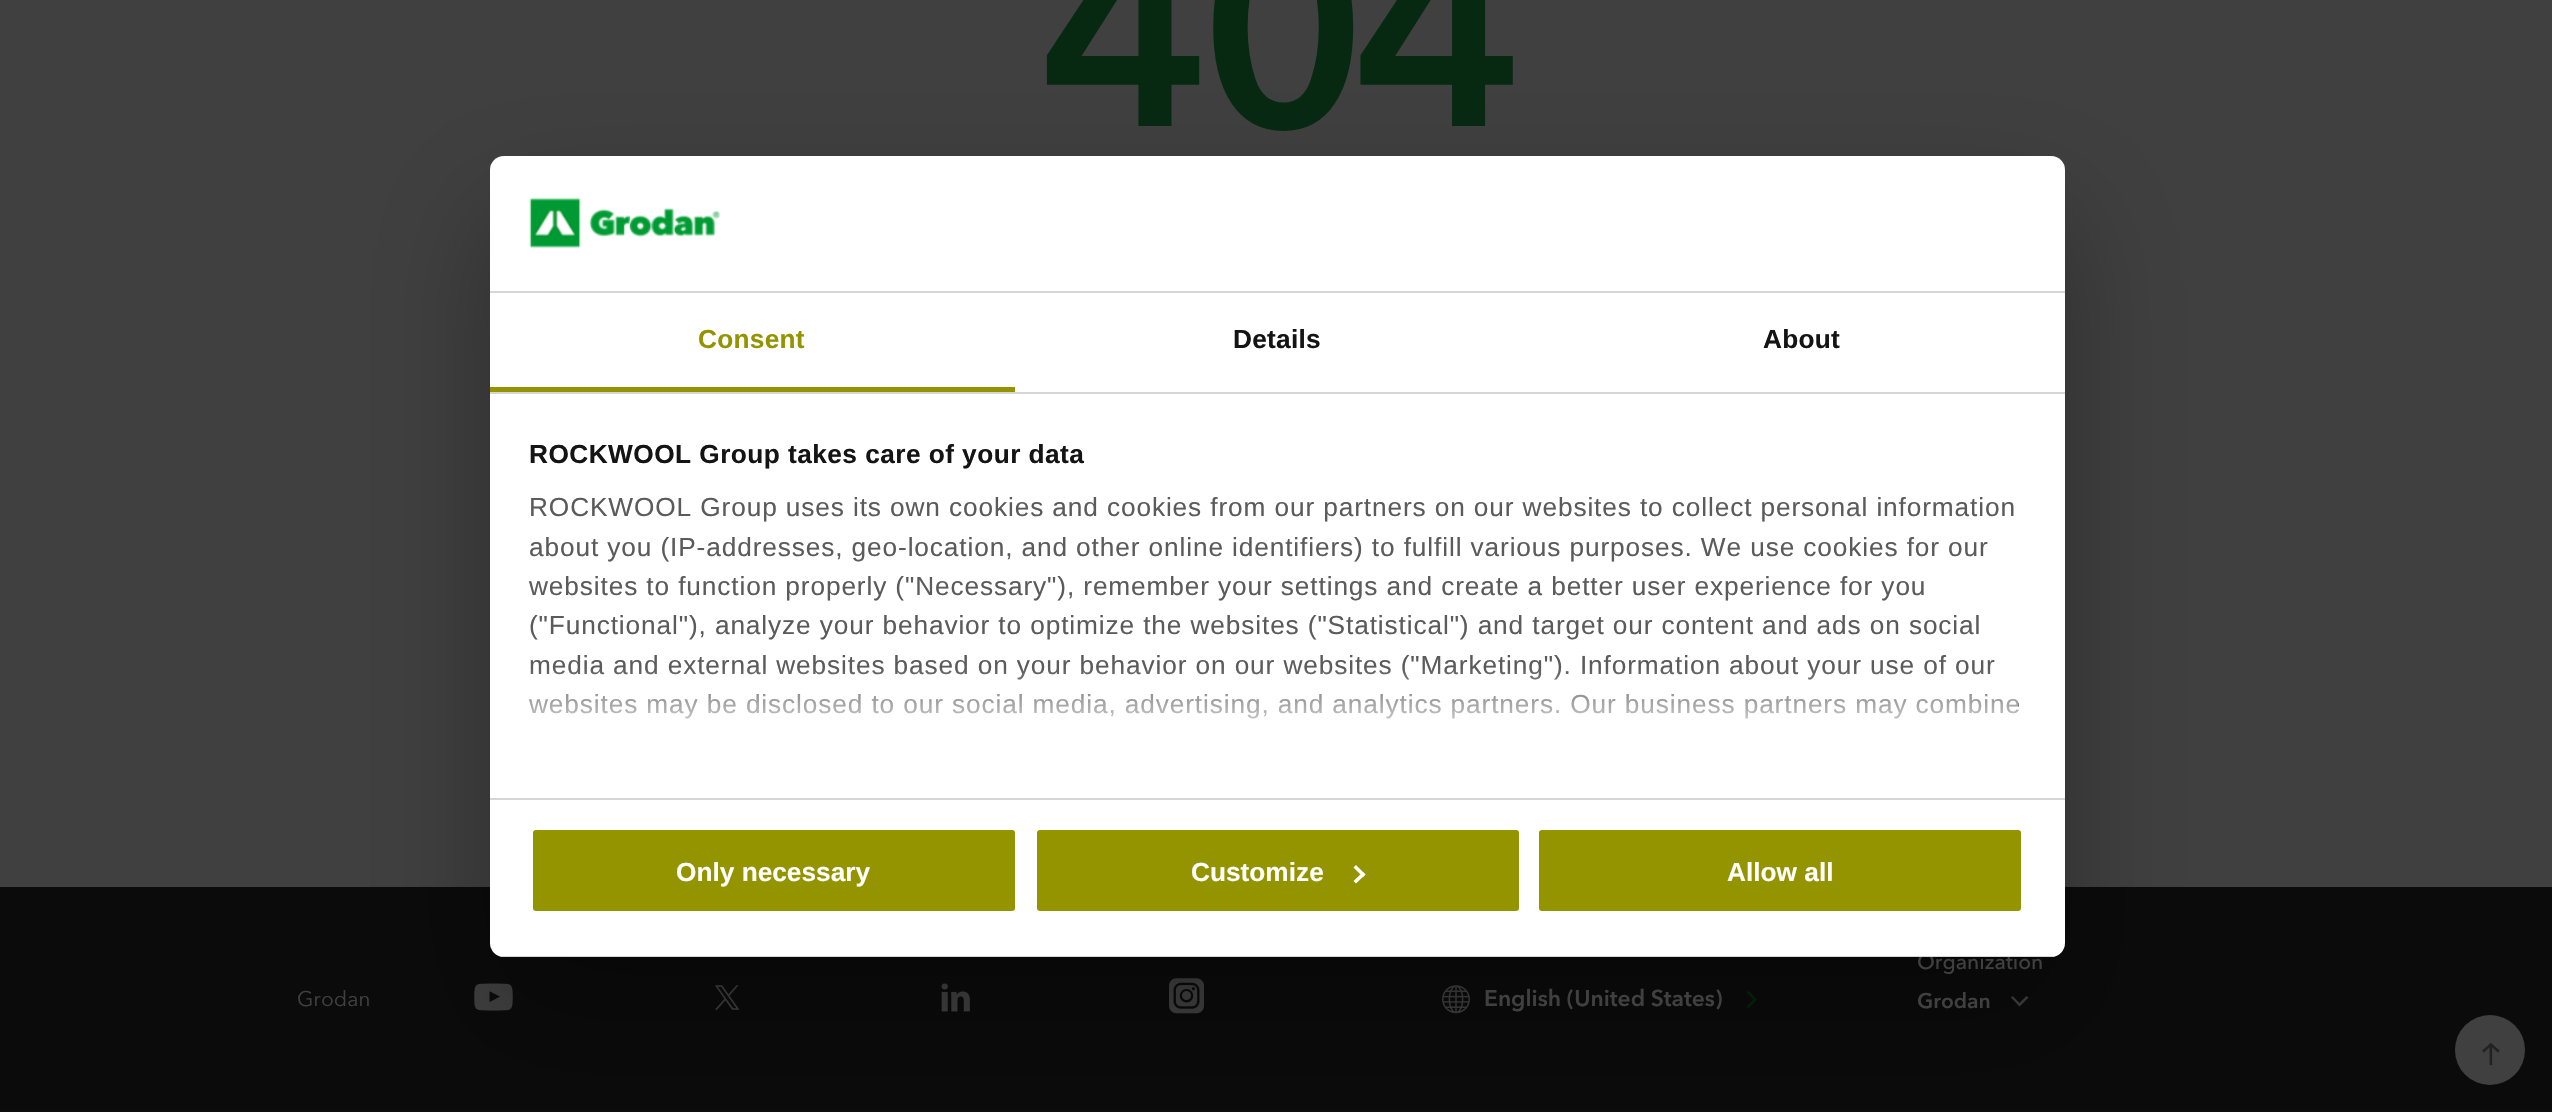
void draw(SkCanvas* canvas) {
    SkPaint paint;
    paint.setAntiAlias(true);
    auto spacedText = [&](const char* s, float x, float y, const SkFont& font, const SkPaint& ink, float letter, float word) {
        std::vector<SkGlyphID> glyphs(font.countText(s, strlen(s), SkTextEncoding::kUTF8));
        std::vector<float> xs(glyphs.size());
        font.textToGlyphs(s, strlen(s), SkTextEncoding::kUTF8, glyphs);
        font.getXPos(glyphs, xs, x);
        float extra = 0;
        for (size_t i = 0; i < glyphs.size(); i++) {
            xs[i] += extra;
            extra += letter + word * (glyphs[i] == font.unicharToGlyph(' '));
        }
        canvas->drawTextBlob(SkTextBlob::MakeFromPosHGlyphs(glyphs, xs, y, font), 0, 0, ink);
    };
    canvas->clear(0xFF404040);
    SkFont font1(fontMgr->matchFamilyStyle("Avenir", SkFontStyle(600, SkFontStyle::kNormal_Width, SkFontStyle::kUpright_Slant)), 280);
    font1.setSubpixel(true);
    paint.setColor(0xFF072912);
    spacedText("404", 1041, 126, font1, paint, -14, 0);
    paint.setColor(0xFF0B0B0B);
    canvas->drawRect(SkRect::MakeXYWH(0, 887, 2552, 223), paint);
    canvas->drawImageRect(SkImages::DeferredFromEncodedData(SkData::MakeFromFileName("img2.png")), SkRect::MakeXYWH(474, 983, 39, 28), SkSamplingOptions());
    canvas->drawImageRect(SkImages::DeferredFromEncodedData(SkData::MakeFromFileName("img3.png")), SkRect::MakeXYWH(715, 985, 25, 25), SkSamplingOptions());
    canvas->drawImageRect(SkImages::DeferredFromEncodedData(SkData::MakeFromFileName("img4.png")), SkRect::MakeXYWH(941, 983, 29, 29), SkSamplingOptions());
    canvas->drawImageRect(SkImages::DeferredFromEncodedData(SkData::MakeFromFileName("img5.png")), SkRect::MakeXYWH(1169, 978, 35, 36), SkSamplingOptions());
    canvas->drawImageRect(SkImages::DeferredFromEncodedData(SkData::MakeFromFileName("img6.png")), SkRect::MakeXYWH(1442, 985, 28, 29), SkSamplingOptions());
    paint.setColor(0xFF00260D);
    canvas->drawPath(SkPathBuilder().moveTo(1746.5f, 1006.5f).lineTo(1748.5f, 1008).lineTo(1757, 999.5f).lineTo(1748.5f, 990.5f).lineTo(1746.5f, 992.5f).lineTo(1753.5f, 999.5f).close().detach(), paint);
    paint.setColor(0xFF404040);
    canvas->drawPath(SkPathBuilder().moveTo(2012.5f, 996).lineTo(2011, 997.5f).lineTo(2019.5f, 1006.5f).lineTo(2028.5f, 997.5f).lineTo(2026.5f, 996).lineTo(2019.5f, 1003).close().detach(), paint);
    paint.setColor(0xFF0E0E0E);
    canvas->drawRect(SkRect::MakeXYWH(0, 1110, 2552, 2), paint);
    paint.setColor(0x4D000000);
    paint.setMaskFilter(SkMaskFilter::MakeBlur(kNormal_SkBlurStyle, 59.5f));
    canvas->drawRoundRect(SkRect::MakeXYWH(490, 212, 1575, 801), 14, 14, paint);
    paint.setMaskFilter(nullptr);
    SkFont font2(fontMgr->matchFamilyStyle("Avenir", SkFontStyle(500, SkFontStyle::kNormal_Width, SkFontStyle::kUpright_Slant)), 21);
    font2.setSubpixel(true);
    paint.setColor(0xFF404040);
    canvas->drawString("Organization", 1917, 969, font2, paint);
    paint.setColor(0xFFFFFFFF);
    canvas->drawRoundRect(SkRect::MakeXYWH(490, 156, 1575, 801), 14, 14, paint);
    paint.setColor(0xFFD6D6D6);
    canvas->drawRect(SkRect::MakeXYWH(490, 291, 1575, 2), paint);
    canvas->drawImageRect(SkImages::DeferredFromEncodedData(SkData::MakeFromFileName("img1.png")), SkRect::MakeXYWH(529, 197, 191, 51), SkSamplingOptions());
    canvas->drawRect(SkRect::MakeXYWH(490, 392, 1575, 2), paint);
    paint.setColor(0xFF949300);
    canvas->drawRect(SkRect::MakeXYWH(490, 387, 525, 5), paint);
    SkFont font3(fontMgr->matchFamilyStyle("Liberation Sans", SkFontStyle::Bold()), 26.25f);
    font3.setSubpixel(true);
    spacedText("Consent", 698, 348, font3, paint, 0.25f, 0);
    paint.setColor(0xFF141414);
    spacedText("Details", 1233, 348, font3, paint, 0.25f, 0);
    spacedText("About", 1763, 348, font3, paint, 0.25f, 0);
    paint.setColor(0xFFD6D6D6);
    canvas->drawRect(SkRect::MakeXYWH(490, 798, 1575, 2), paint);
    paint.setColor(0xFF141414);
    spacedText("ROCKWOOL Group takes care of your data", 529, 463, font3, paint, 0.45f, 0);
    SkFont font4(fontMgr->matchFamilyStyle("Liberation Sans", SkFontStyle::Normal()), 26.25f);
    font4.setSubpixel(true);
    paint.setColor(0xFF5B5B5B);
    spacedText("ROCKWOOL Group uses its own cookies and cookies from our partners on our websites to collect personal information", 529, 516, font4, paint, 0.88f, 0);
    spacedText("about you (IP-addresses, geo-location, and other online identifiers) to fulfill various purposes. We use cookies for our", 529, 556, font4, paint, 0.88f, 0);
    spacedText("websites to function properly (\"Necessary\"), remember your settings and create a better user experience for you", 529, 595, font4, paint, 0.88f, 0);
    spacedText("(\"Functional\"), analyze your behavior to optimize the websites (\"Statistical\") and target our content and ads on social", 529, 634, font4, paint, 0.88f, 0);
    spacedText("media and external websites based on your behavior on our websites (\"Marketing\"). Information about your use of our", 529, 674, font4, paint, 0.88f, 0);
    spacedText("websites may be disclosed to our social media, advertising, and analytics partners. Our business partners may combine", 529, 713, font4, paint, 0.88f, 0);
    {
        const SkColor colors[] = {0xFFFFFFFF, 0xCCFFFFFF, 0x00FFFFFF};
        const float stops[] = {0, 0.5f, 1};
        const SkPoint ends[] = {{1259, 798}, {1259, 667}};
        paint.setShader(SkGradientShader::MakeLinear(ends, colors, stops, 3, SkTileMode::kClamp));
        paint.setAlpha(255);
    }
    canvas->drawRect(SkRect::MakeXYWH(528, 669, 1490, 50), paint);
    canvas->save();
    canvas->clipPath(SkPathBuilder().moveTo(504, 156).lineTo(2051, 156).cubicTo(2058.5f, 156, 2065, 162.5f, 2065, 170).lineTo(2065, 943).cubicTo(2065, 950.5f, 2058.5f, 957, 2051, 957).lineTo(504, 957).cubicTo(496.5f, 957, 490, 950.5f, 490, 943).lineTo(490, 170).cubicTo(490, 162.5f, 496.5f, 156, 504, 156).close().detach(), true);
    paint.setShader(nullptr);
    paint.setColor(0xFFD6D6D6);
    canvas->drawRect(SkRect::MakeXYWH(499, 956, 1557, 1), paint);
    canvas->restore();
    paint.setColor(0xFF949300);
    canvas->drawRoundRect(SkRect::MakeXYWH(531, 828, 486, 85), 5, 5, paint);
    paint.setStyle(SkPaint::kStroke_Style);
    paint.setStrokeWidth(4);
    paint.setColor(0xFFFFFFFF);
    canvas->drawRoundRect(SkRect::MakeXYWH(531, 828, 486, 85), 5, 5, paint);
    paint.setStyle(SkPaint::kFill_Style);
    canvas->drawString("Only necessary", 676, 881, font3, paint);
    paint.setColor(0xFF949300);
    canvas->drawRoundRect(SkRect::MakeXYWH(1035, 828, 486, 85), 5, 5, paint);
    paint.setStyle(SkPaint::kStroke_Style);
    paint.setColor(0xFFFFFFFF);
    canvas->drawRoundRect(SkRect::MakeXYWH(1035, 828, 486, 85), 5, 5, paint);
    paint.setStyle(SkPaint::kFill_Style);
    canvas->drawString("Customize", 1191, 881, font3, paint);
    canvas->drawPath(SkPathBuilder().moveTo(1356, 865).lineTo(1365.5f, 874.5f).lineTo(1363, 877).lineTo(1353.5f, 867.5f).close().detach(), paint);
    canvas->drawPath(SkPathBuilder().moveTo(1363, 872).lineTo(1365.5f, 874.5f).lineTo(1356, 883.5f).lineTo(1353.5f, 881).close().detach(), paint);
    paint.setColor(0xFF949300);
    canvas->drawRoundRect(SkRect::MakeXYWH(1537, 828, 486, 85), 5, 5, paint);
    paint.setStyle(SkPaint::kStroke_Style);
    paint.setColor(0xFFFFFFFF);
    canvas->drawRoundRect(SkRect::MakeXYWH(1537, 828, 486, 85), 5, 5, paint);
    paint.setStyle(SkPaint::kFill_Style);
    canvas->drawString("Allow all", 1727, 881, font3, paint);
    SkFont font5(fontMgr->matchFamilyStyle("Avenir", SkFontStyle::Normal()), 21);
    font5.setSubpixel(true);
    paint.setColor(0xFF404040);
    canvas->drawString("Grodan", 297, 1006, font5, paint);
    SkFont font6(fontMgr->matchFamilyStyle("Avenir", SkFontStyle(600, SkFontStyle::kNormal_Width, SkFontStyle::kUpright_Slant)), 22.75f);
    font6.setSubpixel(true);
    canvas->drawString("English (United States)", 1484, 1006, font6, paint);
    SkFont font7(fontMgr->matchFamilyStyle("Avenir", SkFontStyle(600, SkFontStyle::kNormal_Width, SkFontStyle::kUpright_Slant)), 21);
    font7.setSubpixel(true);
    canvas->drawString("Grodan", 1917, 1008, font7, paint);
    canvas->drawCircle(2490, 1050, 35, paint);
    canvas->drawImageRect(SkImages::DeferredFromEncodedData(SkData::MakeFromFileName("img7.png")), SkRect::MakeXYWH(2482, 1042, 18, 24), SkSamplingOptions());
}
